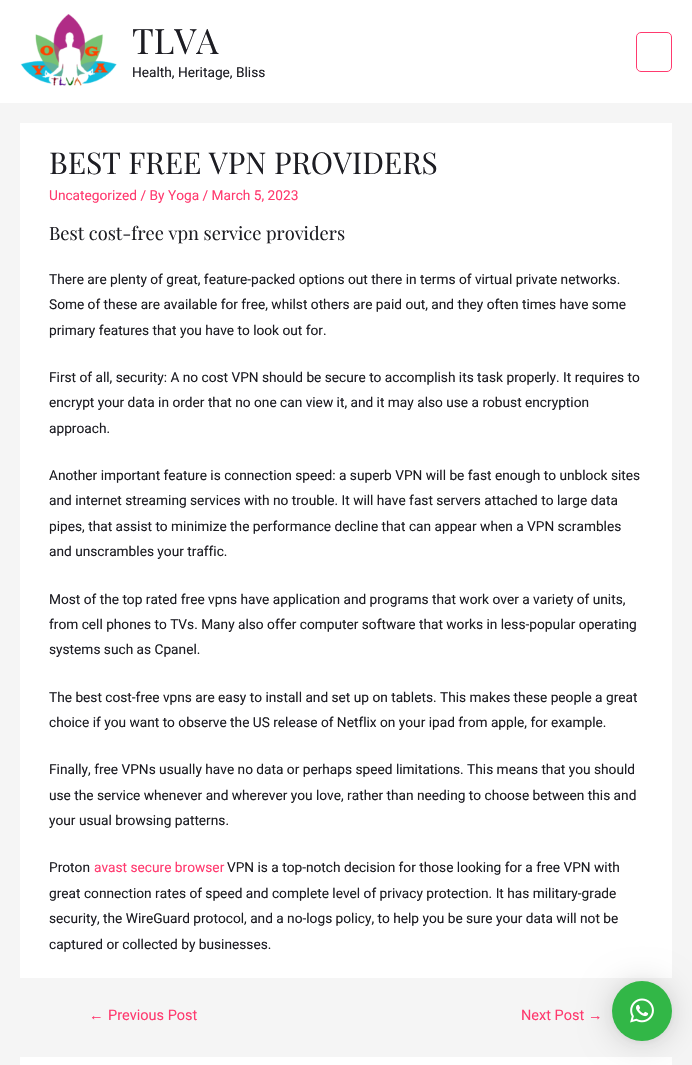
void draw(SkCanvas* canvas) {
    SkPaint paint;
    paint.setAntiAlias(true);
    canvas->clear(0xFFF5F5F5);
    paint.setColor(0xFFFFFFFF);
    canvas->drawRect(SkRect::MakeXYWH(0, 0, 692, 103), paint);
    canvas->drawImageRect(SkImages::DeferredFromEncodedData(SkData::MakeFromFileName("img1.png")), SkRect::MakeXYWH(20, 14, 97, 72), SkSamplingOptions());
    SkFont font1(fontMgr->matchFamilyStyle("Playfair Display", SkFontStyle::Normal()), 35);
    font1.setSubpixel(true);
    paint.setColor(0xFF1D1D23);
    canvas->drawString("TLVA", 132, 54, font1, paint);
    SkFont font2(fontMgr->matchFamilyStyle("Roboto", SkFontStyle::Normal()), 13.7f);
    font2.setSubpixel(true);
    canvas->drawString("Health, Heritage, Bliss", 132, 77, font2, paint);
    paint.setStyle(SkPaint::kStroke_Style);
    paint.setStrokeWidth(1);
    paint.setColor(0xFFFF3A6F);
    canvas->drawRoundRect(SkRect::MakeXYWH(636.5f, 32.5f, 35, 39), 4.5f, 4.5f, paint);
    paint.setStyle(SkPaint::kFill_Style);
    paint.setColor(0xFFFFFFFF);
    canvas->drawRect(SkRect::MakeXYWH(20, 123, 652, 855), paint);
    SkFont font3(fontMgr->matchFamilyStyle("Playfair Display", SkFontStyle::Normal()), 30);
    font3.setSubpixel(true);
    paint.setColor(0xFF1D1D23);
    canvas->drawString("BEST FREE VPN PROVIDERS", 49, 174, font3, paint);
    paint.setColor(0xFFFF3A6F);
    canvas->drawString("Uncategorized / By Yoga / March 5, 2023", 49, 200, font2, paint);
    SkFont font4(fontMgr->matchFamilyStyle("Playfair Display", SkFontStyle::Normal()), 18.25f);
    font4.setSubpixel(true);
    paint.setColor(0xFF1D1D23);
    canvas->drawString("Best cost-free vpn service providers", 49, 240, font4, paint);
    canvas->drawString("There are plenty of great, feature-packed options out there in terms of virtual private networks.", 49, 284, font2, paint);
    canvas->drawString("Some of these are available for free, whilst others are paid out, and they often times have some", 49, 309, font2, paint);
    canvas->drawString("primary features that you have to look out for.", 49, 335, font2, paint);
    canvas->drawString("First of all, security: A no cost VPN should be secure to accomplish its task properly. It requires to", 49, 382, font2, paint);
    canvas->drawString("encrypt your data in order that no one can view it, and it may also use a robust encryption", 49, 407, font2, paint);
    canvas->drawString("approach.", 49, 433, font2, paint);
    canvas->drawString("Another important feature is connection speed: a superb VPN will be fast enough to unblock sites", 49, 480, font2, paint);
    canvas->drawString("and internet streaming services with no trouble. It will have fast servers attached to large data", 49, 505, font2, paint);
    canvas->drawString("pipes, that assist to minimize the performance decline that can appear when a VPN scrambles", 49, 531, font2, paint);
    canvas->drawString("and unscrambles your traffic.", 49, 556, font2, paint);
    canvas->drawString("Most of the top rated free vpns have application and programs that work over a variety of units,", 49, 604, font2, paint);
    canvas->drawString("from cell phones to TVs. Many also offer computer software that works in less-popular operating", 49, 629, font2, paint);
    canvas->drawString("systems such as Cpanel.", 49, 654, font2, paint);
    canvas->drawString("The best cost-free vpns are easy to install and set up on tablets. This makes these people a great", 49, 702, font2, paint);
    canvas->drawString("choice if you want to observe the US release of Netflix on your ipad from apple, for example.", 49, 727, font2, paint);
    canvas->drawString("Finally, free VPNs usually have no data or perhaps speed limitations. This means that you should", 49, 774, font2, paint);
    canvas->drawString("use the service whenever and wherever you love, rather than needing to choose between this and", 49, 800, font2, paint);
    canvas->drawString("your usual browsing patterns.", 49, 825, font2, paint);
    canvas->drawString("Proton", 49, 872, font2, paint);
    paint.setColor(0xFFFF3A6F);
    canvas->drawString("avast secure browser", 94, 872, font2, paint);
    paint.setColor(0xFF1D1D23);
    canvas->drawString("VPN is a top-notch decision for those looking for a free VPN with", 227, 872, font2, paint);
    canvas->drawString("great connection rates of speed and complete level of privacy protection. It has military-grade", 49, 898, font2, paint);
    canvas->drawString("security, the WireGuard protocol, and a no-logs policy, to help you be sure your data will not be", 49, 923, font2, paint);
    canvas->drawString("captured or collected by businesses.", 49, 949, font2, paint);
    SkFont font5(fontMgr->matchFamilyStyle("Liberation Sans", SkFontStyle::Normal()), 14.5f);
    font5.setSubpixel(true);
    paint.setColor(0xFFFF3A6F);
    canvas->drawString("←", 89, 1020, font5, paint);
    SkFont font6(fontMgr->matchFamilyStyle("Roboto", SkFontStyle::Normal()), 14.5f);
    font6.setSubpixel(true);
    canvas->drawString("Previous Post", 108, 1020, font6, paint);
    canvas->drawString("Next Post", 521, 1020, font6, paint);
    canvas->drawString("→", 588, 1020, font5, paint);
    paint.setColor(0xFFFFFFFF);
    canvas->drawRect(SkRect::MakeXYWH(20, 1057, 652, 8), paint);
    paint.setColor(0x29000000);
    paint.setMaskFilter(SkMaskFilter::MakeBlur(kNormal_SkBlurStyle, 16));
    canvas->drawRoundRect(SkRect::MakeXYWH(612, 983, 60, 60), 30, 30, paint);
    paint.setMaskFilter(nullptr);
    paint.setColor(0x0F000000);
    paint.setMaskFilter(SkMaskFilter::MakeBlur(kNormal_SkBlurStyle, 3));
    canvas->drawRoundRect(SkRect::MakeXYWH(612, 982, 60, 60), 30, 30, paint);
    paint.setMaskFilter(nullptr);
    paint.setColor(0xFF32B747);
    canvas->drawCircle(642, 1011, 30, paint);
    canvas->drawImageRect(SkImages::DeferredFromEncodedData(SkData::MakeFromFileName("img2.png")), SkRect::MakeXYWH(630, 998, 24, 25), SkSamplingOptions());
}
